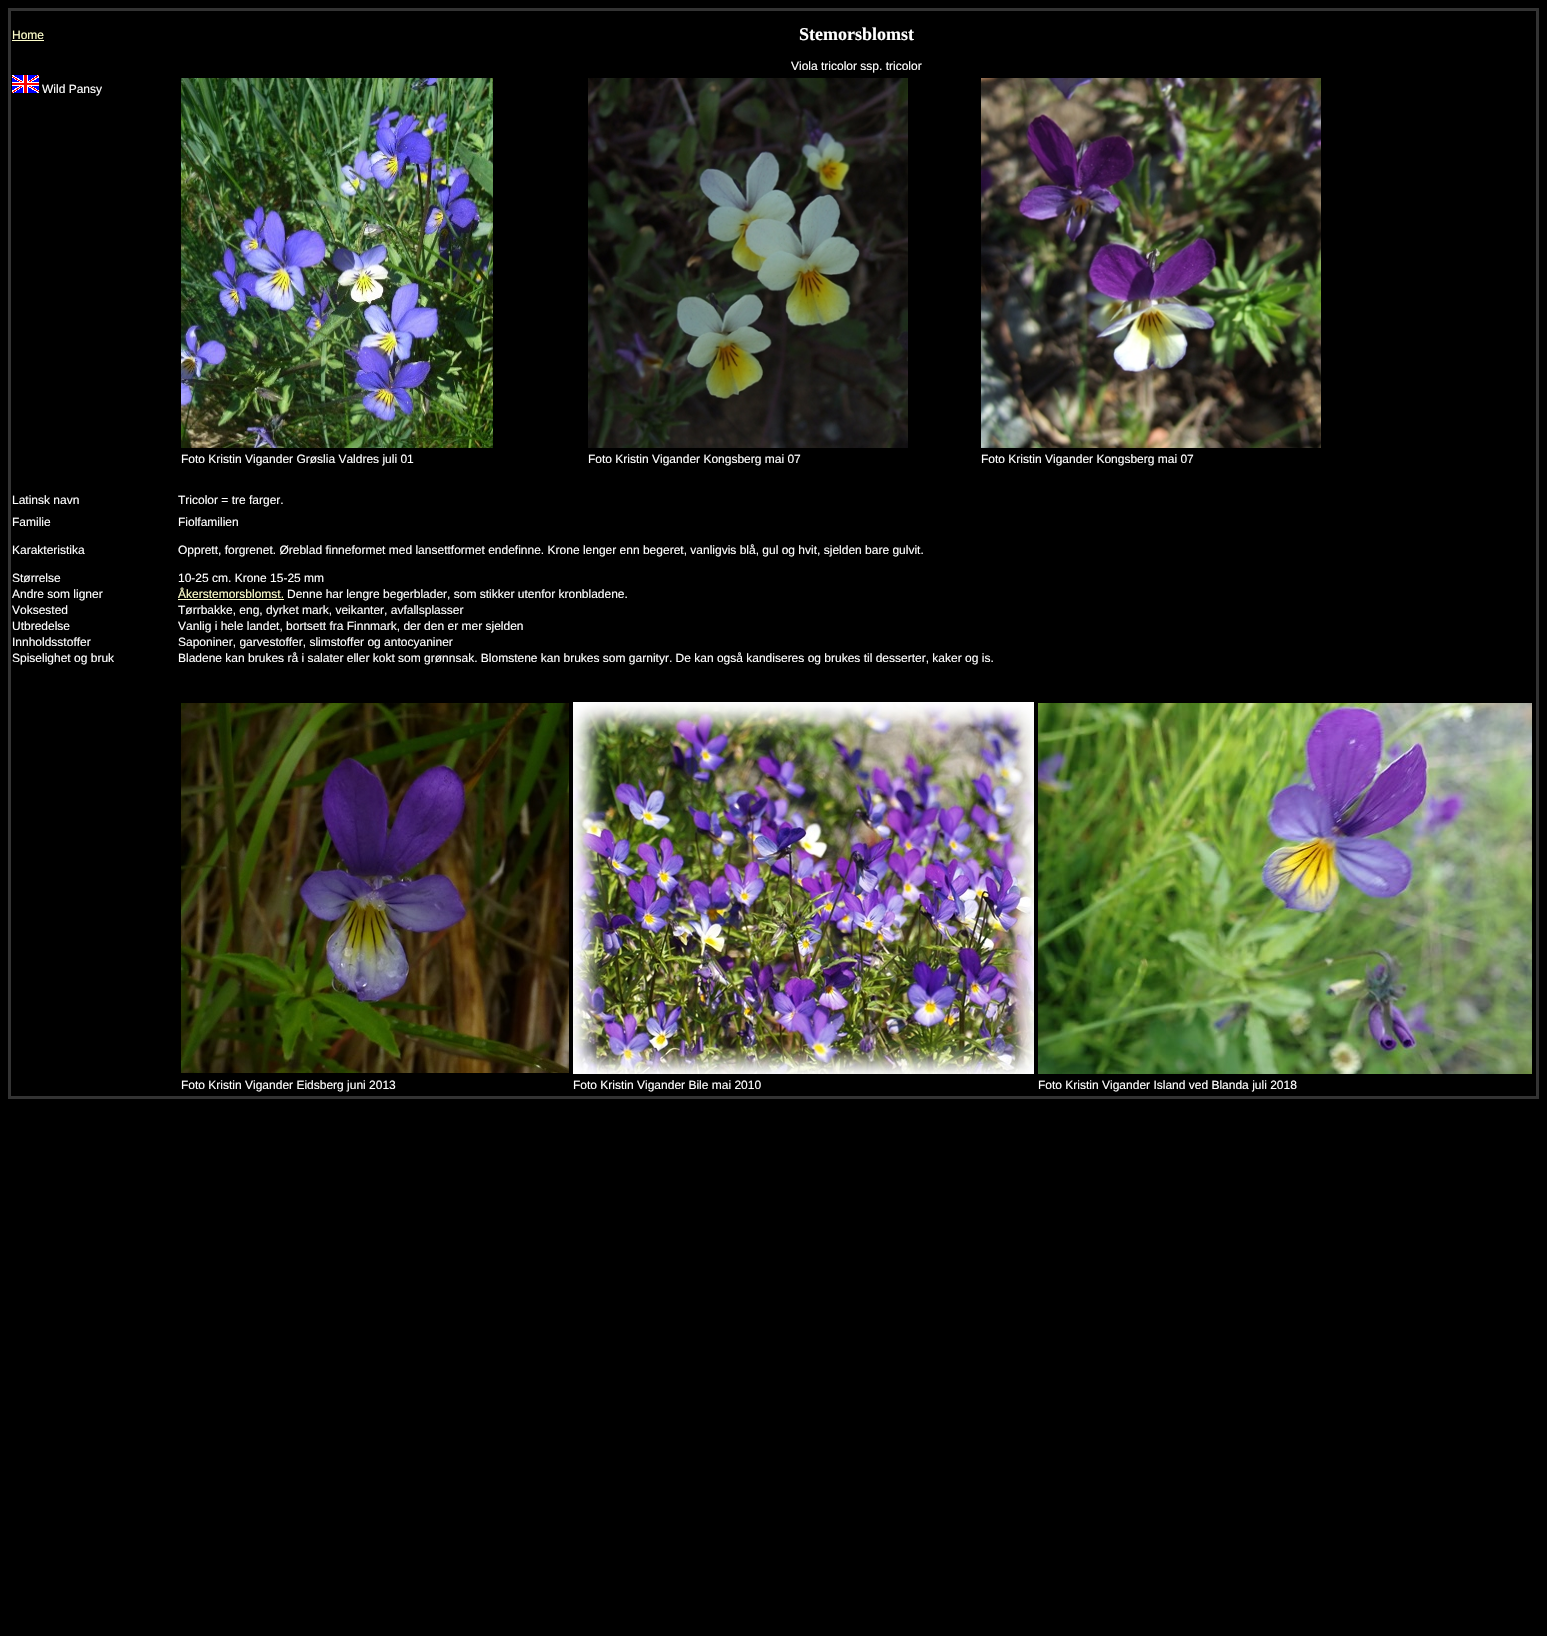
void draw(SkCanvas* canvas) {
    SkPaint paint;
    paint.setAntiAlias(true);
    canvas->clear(0xFF000000);
    paint.setStyle(SkPaint::kStroke_Style);
    paint.setStrokeWidth(3);
    paint.setColor(0xFF333333);
    canvas->drawRect(SkRect::MakeXYWH(9.5f, 9.5f, 1528, 1088), paint);
    SkFont font1(fontMgr->matchFamilyStyle("Liberation Sans", SkFontStyle::Normal()), 12);
    font1.setSubpixel(true);
    paint.setStyle(SkPaint::kFill_Style);
    paint.setColor(0xFFFFFFCC);
    canvas->drawString("Home", 12, 39, font1, paint);
    canvas->drawRect(SkRect::MakeXYWH(12, 40, 32, 1), paint);
    SkFont font2(fontMgr->matchFamilyStyle("Liberation Serif", SkFontStyle::Bold()), 18);
    font2.setSubpixel(true);
    paint.setColor(0xFFFFFFFF);
    canvas->drawString("Stemorsblomst", 799, 40, font2, paint);
    canvas->drawString("Viola tricolor ssp. tricolor", 791, 70, font1, paint);
    canvas->drawImageRect(SkImages::DeferredFromEncodedData(SkData::MakeFromFileName("img1.png")), SkRect::MakeXYWH(12, 75, 27, 18), SkSamplingOptions());
    canvas->drawString("Wild Pansy", 42, 93, font1, paint);
    canvas->drawImageRect(SkImages::DeferredFromEncodedData(SkData::MakeFromFileName("img2.png")), SkRect::MakeXYWH(181, 78, 312, 370), SkSamplingOptions());
    canvas->drawImageRect(SkImages::DeferredFromEncodedData(SkData::MakeFromFileName("img3.png")), SkRect::MakeXYWH(588, 78, 320, 370), SkSamplingOptions());
    canvas->drawImageRect(SkImages::DeferredFromEncodedData(SkData::MakeFromFileName("img4.png")), SkRect::MakeXYWH(981, 78, 340, 370), SkSamplingOptions());
    canvas->drawString("Foto Kristin Vigander Grøslia Valdres juli 01", 181, 463, font1, paint);
    canvas->drawString("Foto Kristin Vigander Kongsberg mai 07", 588, 463, font1, paint);
    canvas->drawString("Foto Kristin Vigander Kongsberg mai 07", 981, 463, font1, paint);
    canvas->drawString("Latinsk navn", 12, 504, font1, paint);
    canvas->drawString("Tricolor = tre farger.", 178, 504, font1, paint);
    canvas->drawString("Familie", 12, 526, font1, paint);
    canvas->drawString("Fiolfamilien", 178, 526, font1, paint);
    canvas->drawString("Karakteristika", 12, 554, font1, paint);
    canvas->drawString("Opprett, forgrenet. Øreblad finneformet med lansettformet endefinne. Krone lenger enn begeret, vanligvis blå, gul og hvit, sjelden bare gulvit.", 178, 554, font1, paint);
    canvas->drawString("Størrelse", 12, 582, font1, paint);
    canvas->drawString("10-25 cm. Krone 15-25 mm", 178, 582, font1, paint);
    canvas->drawString("Andre som ligner", 12, 598, font1, paint);
    paint.setColor(0xFFFFFFCC);
    canvas->drawString("Åkerstemorsblomst.", 178, 598, font1, paint);
    canvas->drawRect(SkRect::MakeXYWH(178, 599, 106, 1), paint);
    paint.setColor(0xFFFFFFFF);
    canvas->drawString("Denne har lengre begerblader, som stikker utenfor kronbladene.", 287, 598, font1, paint);
    canvas->drawString("Voksested", 12, 614, font1, paint);
    canvas->drawString("Tørrbakke, eng, dyrket mark, veikanter, avfallsplasser", 178, 614, font1, paint);
    canvas->drawString("Utbredelse", 12, 630, font1, paint);
    canvas->drawString("Vanlig i hele landet, bortsett fra Finnmark, der den er mer sjelden", 178, 630, font1, paint);
    canvas->drawString("Innholdsstoffer", 12, 646, font1, paint);
    canvas->drawString("Saponiner, garvestoffer, slimstoffer og antocyaniner", 178, 646, font1, paint);
    canvas->drawString("Spiselighet og bruk", 12, 662, font1, paint);
    canvas->drawString("Bladene kan brukes rå i salater eller kokt som grønnsak. Blomstene kan brukes som garnityr. De kan også kandiseres og brukes til desserter, kaker og is.", 178, 662, font1, paint);
    canvas->drawImageRect(SkImages::DeferredFromEncodedData(SkData::MakeFromFileName("img5.png")), SkRect::MakeXYWH(181, 703, 388, 370), SkSamplingOptions());
    canvas->drawImageRect(SkImages::DeferredFromEncodedData(SkData::MakeFromFileName("img6.png")), SkRect::MakeXYWH(573, 702, 461, 372), SkSamplingOptions());
    canvas->drawImageRect(SkImages::DeferredFromEncodedData(SkData::MakeFromFileName("img7.png")), SkRect::MakeXYWH(1038, 703, 494, 371), SkSamplingOptions());
    canvas->drawString("Foto Kristin Vigander Eidsberg juni 2013", 181, 1089, font1, paint);
    canvas->drawString("Foto Kristin Vigander Bile mai 2010", 573, 1089, font1, paint);
    canvas->drawString("Foto Kristin Vigander Island ved Blanda juli 2018", 1038, 1089, font1, paint);
}
